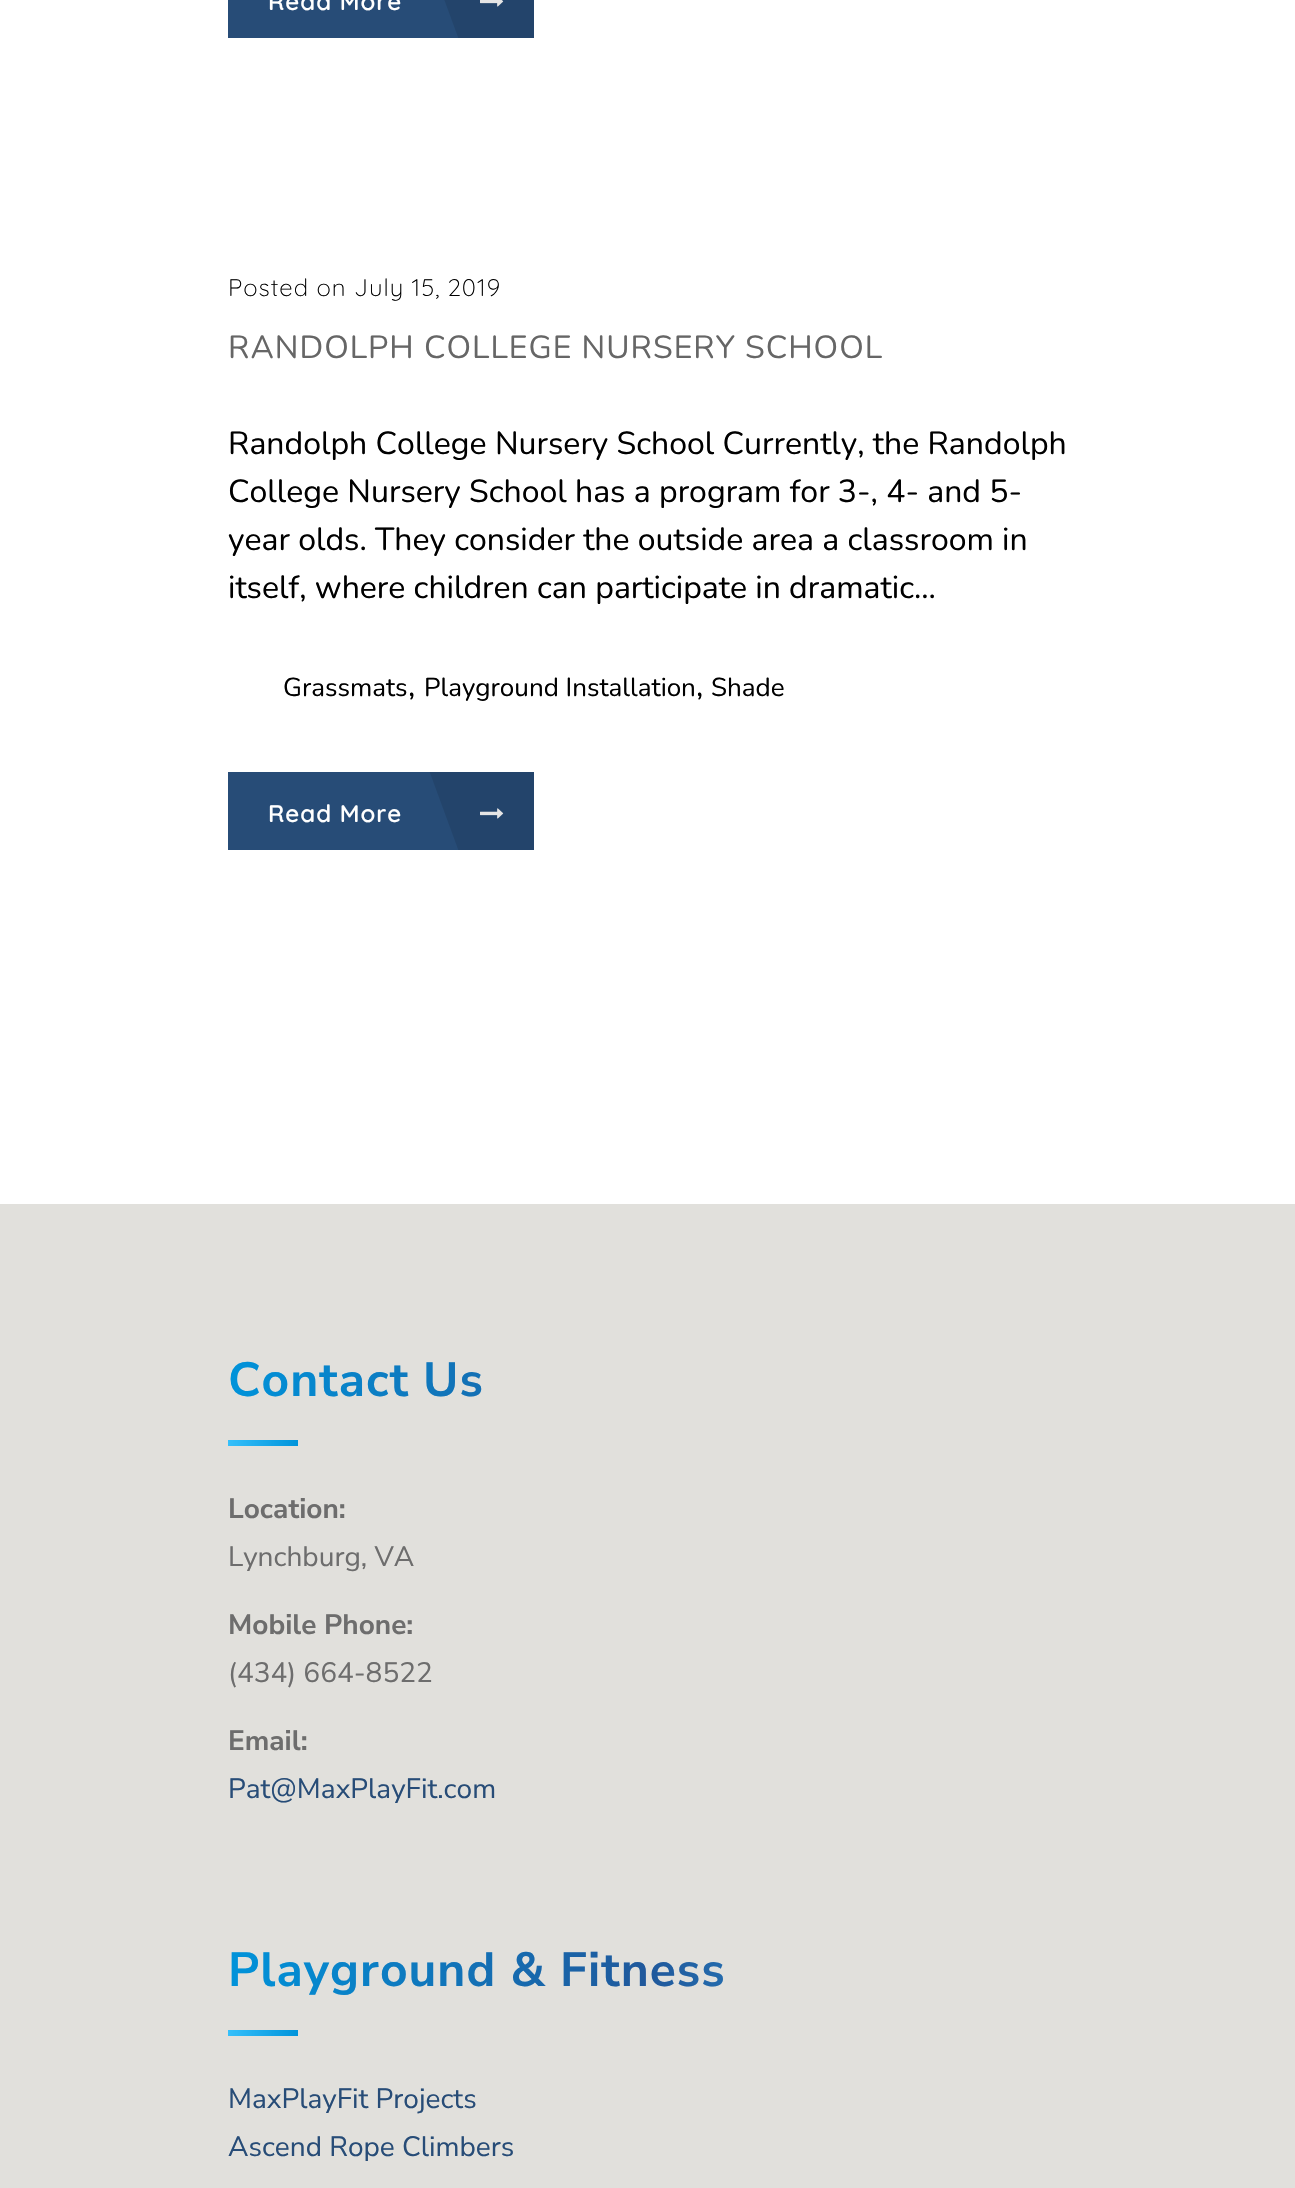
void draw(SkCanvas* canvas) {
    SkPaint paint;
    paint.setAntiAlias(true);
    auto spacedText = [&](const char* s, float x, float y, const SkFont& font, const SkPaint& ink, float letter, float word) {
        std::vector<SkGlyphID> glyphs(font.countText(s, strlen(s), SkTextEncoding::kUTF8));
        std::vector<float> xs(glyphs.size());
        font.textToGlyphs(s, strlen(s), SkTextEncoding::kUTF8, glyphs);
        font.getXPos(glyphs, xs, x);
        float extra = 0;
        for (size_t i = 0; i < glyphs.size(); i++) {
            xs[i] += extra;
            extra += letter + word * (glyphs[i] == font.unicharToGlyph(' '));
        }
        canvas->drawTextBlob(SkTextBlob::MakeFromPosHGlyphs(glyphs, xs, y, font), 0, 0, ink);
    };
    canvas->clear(0xFFFFFFFF);
    paint.setColor(0xFF274C77);
    canvas->drawRect(SkRect::MakeXYWH(228, 0, 306, 38), paint);
    SkFont font1(fontMgr->matchFamilyStyle("Quicksand", SkFontStyle(600, SkFontStyle::kNormal_Width, SkFontStyle::kUpright_Slant)), 24);
    font1.setSubpixel(true);
    paint.setColor(0xFFFFFFFF);
    spacedText("Read More", 268, 10, font1, paint, 1, 0);
    canvas->drawImageRect(SkImages::DeferredFromEncodedData(SkData::MakeFromFileName("img1.png")), SkRect::MakeXYWH(480, 0, 24, 7), SkSamplingOptions());
    canvas->save();
    canvas->clipRect(SkRect::MakeXYWH(228, 0, 306, 38));
    paint.setColor(0x1A000000);
    canvas->drawPath(SkPathBuilder().moveTo(426, -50).lineTo(527, -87).lineTo(580, 60).lineTo(480, 97).close().detach(), paint);
    canvas->restore();
    SkFont font2(fontMgr->matchFamilyStyle("Quicksand", SkFontStyle(300, SkFontStyle::kNormal_Width, SkFontStyle::kUpright_Slant)), 24);
    font2.setSubpixel(true);
    paint.setColor(0xFF000000);
    spacedText("Posted on July 15, 2019", 228, 296, font2, paint, 1, 0);
    SkFont font3(fontMgr->matchFamilyStyle("Nunito", SkFontStyle::Normal()), 32);
    font3.setSubpixel(true);
    paint.setColor(0xFF666666);
    spacedText("RANDOLPH COLLEGE NURSERY SCHOOL", 228, 358, font3, paint, 1, 0);
    paint.setColor(0xFF000000);
    canvas->drawString("Randolph College Nursery School Currently, the Randolph", 228, 454, font3, paint);
    canvas->drawString("College Nursery School has a program for 3-, 4- and 5-", 228, 502, font3, paint);
    canvas->drawString("year olds. They consider the outside area a classroom in", 228, 550, font3, paint);
    canvas->drawString("itself, where children can participate in dramatic...", 228, 598, font3, paint);
    SkFont font4(fontMgr->matchFamilyStyle("Nunito", SkFontStyle::Normal()), 26);
    font4.setSubpixel(true);
    canvas->drawString("Grassmats", 283, 696, font4, paint);
    canvas->drawString(",", 408, 696, font3, paint);
    canvas->drawString("Playground Installation", 424, 696, font4, paint);
    canvas->drawString(",", 696, 696, font3, paint);
    canvas->drawString("Shade", 711, 696, font4, paint);
    paint.setColor(0xFF274C77);
    canvas->drawRect(SkRect::MakeXYWH(228, 772, 306, 78), paint);
    paint.setColor(0xFFFFFFFF);
    spacedText("Read More", 268, 822, font1, paint, 1, 0);
    canvas->drawImageRect(SkImages::DeferredFromEncodedData(SkData::MakeFromFileName("img2.png")), SkRect::MakeXYWH(480, 808, 24, 11), SkSamplingOptions());
    canvas->save();
    canvas->clipRect(SkRect::MakeXYWH(228, 772, 306, 78));
    paint.setColor(0x1A000000);
    canvas->drawPath(SkPathBuilder().moveTo(426, 762).lineTo(527, 725).lineTo(580, 872).lineTo(480, 909).close().detach(), paint);
    canvas->restore();
    paint.setColor(0xFFE1E0DC);
    canvas->drawRect(SkRect::MakeXYWH(0, 1204, 1295, 984), paint);
    SkFont font5(fontMgr->matchFamilyStyle("Nunito Sans", SkFontStyle::Bold()), 48);
    font5.setSubpixel(true);
    {
        const SkColor colors[] = {0xFF0093DA, 0xFF20589B, 0xFF35C0FB};
        const float stops[] = {0, 0.5f, 1};
        const SkPoint ends[] = {{228, 1395}, {1068, 1395}};
        paint.setShader(SkGradientShader::MakeLinear(ends, colors, stops, 3, SkTileMode::kClamp));
        paint.setAlpha(255);
    }
    spacedText("Contact Us", 228, 1396, font5, paint, 1, 0);
    {
        const SkColor colors[] = {0xFF35C0FB, 0xFF0093DA};
        const float stops[] = {0, 1};
        const SkPoint ends[] = {{228, 1443}, {298, 1443}};
        paint.setShader(SkGradientShader::MakeLinear(ends, colors, stops, 2, SkTileMode::kClamp));
        paint.setAlpha(255);
    }
    canvas->drawRect(SkRect::MakeXYWH(228, 1440, 70, 6), paint);
    SkFont font6(fontMgr->matchFamilyStyle("Nunito Sans", SkFontStyle::Bold()), 28);
    font6.setSubpixel(true);
    paint.setShader(nullptr);
    paint.setColor(0xFF6D6D6D);
    canvas->drawString("Location:", 228, 1518, font6, paint);
    SkFont font7(fontMgr->matchFamilyStyle("Nunito Sans", SkFontStyle::Normal()), 28);
    font7.setSubpixel(true);
    canvas->drawString("Lynchburg, VA", 228, 1566, font7, paint);
    canvas->drawString("Mobile Phone:", 228, 1634, font6, paint);
    canvas->drawString("(434) 664-8522", 228, 1682, font7, paint);
    canvas->drawString("Email:", 228, 1750, font6, paint);
    paint.setColor(0xFF274C77);
    canvas->drawString("Pat@MaxPlayFit.com", 228, 1798, font7, paint);
    {
        const SkColor colors[] = {0xFF0093DA, 0xFF20589B, 0xFF35C0FB};
        const float stops[] = {0, 0.5f, 1};
        const SkPoint ends[] = {{228, 1985}, {1068, 1985}};
        paint.setShader(SkGradientShader::MakeLinear(ends, colors, stops, 3, SkTileMode::kClamp));
        paint.setAlpha(255);
    }
    spacedText("Playground & Fitness", 228, 1986, font5, paint, 1, 0);
    {
        const SkColor colors[] = {0xFF35C0FB, 0xFF0093DA};
        const float stops[] = {0, 1};
        const SkPoint ends[] = {{228, 2033}, {298, 2033}};
        paint.setShader(SkGradientShader::MakeLinear(ends, colors, stops, 2, SkTileMode::kClamp));
        paint.setAlpha(255);
    }
    canvas->drawRect(SkRect::MakeXYWH(228, 2030, 70, 6), paint);
    paint.setShader(nullptr);
    paint.setColor(0xFF274C77);
    canvas->drawString("MaxPlayFit Projects", 228, 2108, font7, paint);
    canvas->drawString("Ascend Rope Climbers", 228, 2156, font7, paint);
}
